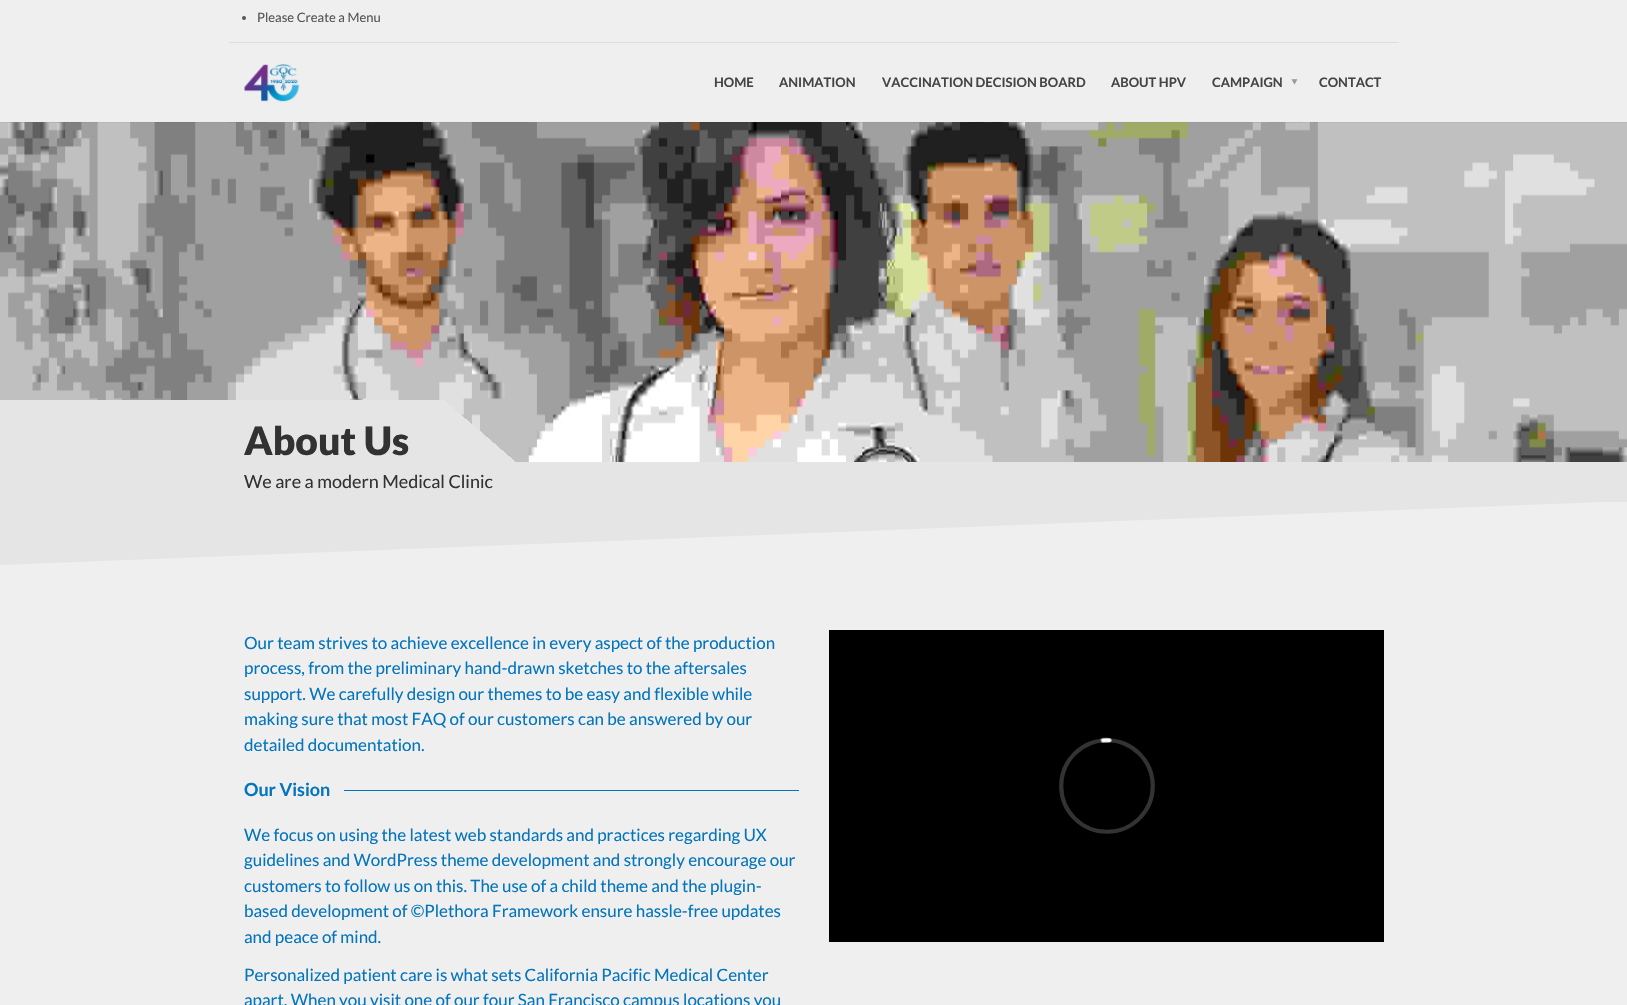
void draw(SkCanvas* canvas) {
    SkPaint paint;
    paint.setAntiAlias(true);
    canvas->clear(0xFFEFEFEF);
    canvas->drawImageRect(SkImages::DeferredFromEncodedData(SkData::MakeFromFileName("img3.png")), SkRect::MakeXYWH(0, 122, 1627, 340), SkSamplingOptions());
    paint.setColor(0x33000000);
    paint.setMaskFilter(SkMaskFilter::MakeBlur(kNormal_SkBlurStyle, 0.5f));
    canvas->drawRect(SkRect::MakeXYWH(0, 0, 1627, 122), paint);
    paint.setMaskFilter(nullptr);
    paint.setColor(0xFFEFEFEF);
    canvas->drawRect(SkRect::MakeXYWH(0, 0, 1627, 122), paint);
    paint.setColor(0xFFDDDDDD);
    canvas->drawRect(SkRect::MakeXYWH(229, 42, 1170, 1), paint);
    paint.setColor(0xFF555555);
    canvas->drawCircle(244, 18, 2, paint);
    SkFont font1(fontMgr->matchFamilyStyle("Lato", SkFontStyle::Normal()), 13);
    font1.setSubpixel(true);
    canvas->drawString("Please Create a Menu", 257, 22, font1, paint);
    canvas->drawImageRect(SkImages::DeferredFromEncodedData(SkData::MakeFromFileName("img1.png")), SkRect::MakeXYWH(244, 64, 56, 38), SkSamplingOptions());
    SkFont font2(fontMgr->matchFamilyStyle("Lato", SkFontStyle::Bold()), 13);
    font2.setSubpixel(true);
    paint.setColor(0xFF444444);
    canvas->drawString("HOME", 714, 87, font2, paint);
    canvas->drawString("ANIMATION", 779, 87, font2, paint);
    canvas->drawString("VACCINATION DECISION BOARD", 882, 87, font2, paint);
    canvas->drawString("ABOUT HPV", 1111, 87, font2, paint);
    canvas->drawString("CAMPAIGN", 1212, 87, font2, paint);
    SkFont font3(fontMgr->matchFamilyStyle("Noto Sans", SkFontStyle::Normal()), 20);
    font3.setSubpixel(true);
    paint.setColor(0xFF9A9A9A);
    canvas->save();
    canvas->rotate(90, 1287, 78);
    canvas->drawString("‣", 1287, 78, font3, paint);
    canvas->restore();
    paint.setColor(0xFF444444);
    canvas->drawString("CONTACT", 1319, 87, font2, paint);
    paint.setColor(0xFFE5E5E5);
    canvas->drawRect(SkRect::MakeXYWH(407, 400, 37, 62), paint);
    SkFont font4(fontMgr->matchFamilyStyle("Lato", SkFontStyle(900, SkFontStyle::kNormal_Width, SkFontStyle::kUpright_Slant)), 39);
    font4.setSubpixel(true);
    paint.setColor(0xFF323232);
    canvas->drawString("About Us", 244, 455, font4, paint);
    paint.setColor(0xFFE5E5E5);
    canvas->drawRect(SkRect::MakeXYWH(0, 462, 1627, 40), paint);
    SkFont font5(fontMgr->matchFamilyStyle("Lato", SkFontStyle::Normal()), 18);
    font5.setSubpixel(true);
    paint.setColor(0xFF323232);
    canvas->drawString("We are a modern Medical Clinic", 244, 488, font5, paint);
    paint.setColor(0xFFE5E5E5);
    canvas->drawPath(SkPathBuilder().moveTo(1627, 501).lineTo(0, 501).lineTo(0, 565).close().detach(), paint);
    SkFont font6(fontMgr->matchFamilyStyle("Lato", SkFontStyle::Normal()), 17);
    font6.setSubpixel(true);
    paint.setColor(0xFF0475BC);
    canvas->drawString("Our team strives to achieve excellence in every aspect of the production", 244, 649, font6, paint);
    canvas->drawString("process, from the preliminary hand-drawn sketches to the aftersales", 244, 674, font6, paint);
    canvas->drawString("support. We carefully design our themes to be easy and flexible while", 244, 700, font6, paint);
    canvas->drawString("making sure that most FAQ of our customers can be answered by our", 244, 725, font6, paint);
    canvas->drawString("detailed documentation.", 244, 751, font6, paint);
    SkFont font7(fontMgr->matchFamilyStyle("Lato", SkFontStyle::Bold()), 18);
    font7.setSubpixel(true);
    canvas->drawString("Our Vision", 244, 796, font7, paint);
    canvas->drawRect(SkRect::MakeXYWH(344, 790, 455, 1), paint);
    canvas->drawString("We focus on using the latest web standards and practices regarding UX", 244, 841, font6, paint);
    canvas->drawString("guidelines and WordPress theme development and strongly encourage our", 244, 866, font6, paint);
    canvas->drawString("customers to follow us on this. The use of a child theme and the plugin-", 244, 892, font6, paint);
    canvas->drawString("based development of ©Plethora Framework ensure hassle-free updates", 244, 917, font6, paint);
    canvas->drawString("and peace of mind.", 244, 943, font6, paint);
    canvas->drawString("Personalized patient care is what sets California Pacific Medical Center", 244, 981, font6, paint);
    canvas->drawString("apart. When you visit one of our four San Francisco campus locations you", 244, 1006, font6, paint);
    canvas->drawImageRect(SkImages::DeferredFromEncodedData(SkData::MakeFromFileName("img2.png")), SkRect::MakeXYWH(829, 630, 555, 312), SkSamplingOptions());
}
